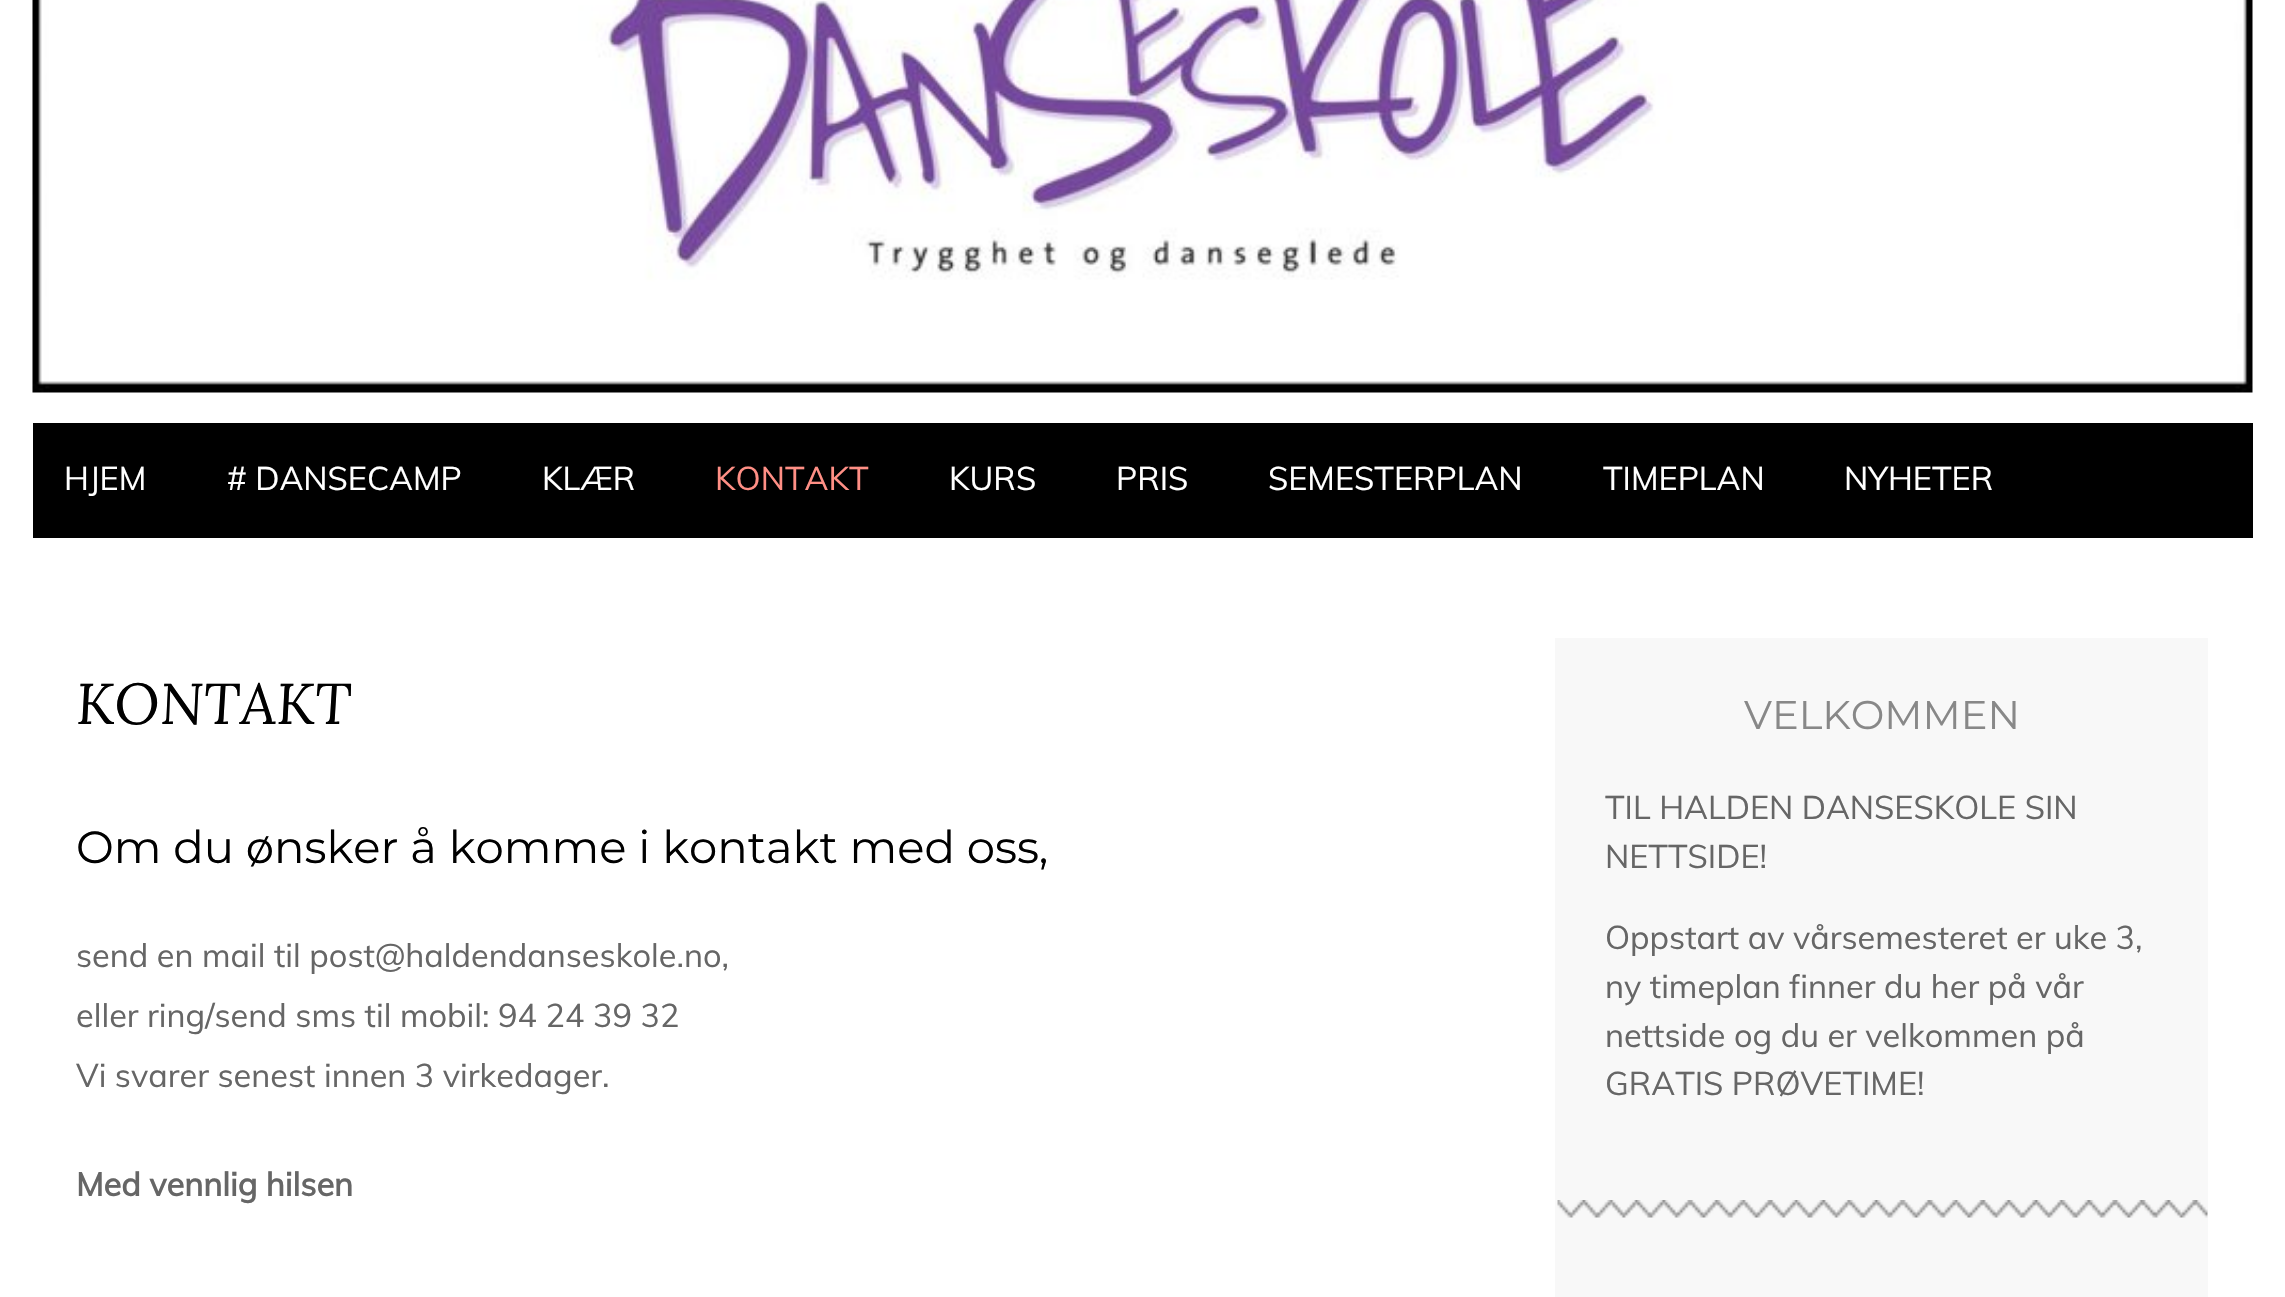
void draw(SkCanvas* canvas) {
    SkPaint paint;
    paint.setAntiAlias(true);
    canvas->clear(0xFFFFFFFF);
    canvas->drawImageRect(SkImages::DeferredFromEncodedData(SkData::MakeFromFileName("img1.png")), SkRect::MakeXYWH(32, 0, 2221, 393), SkSamplingOptions());
    paint.setColor(0xFF000000);
    canvas->drawRect(SkRect::MakeXYWH(33, 423, 2220, 115), paint);
    SkFont font1(fontMgr->matchFamilyStyle("Muli", SkFontStyle::Normal()), 32.5f);
    font1.setSubpixel(true);
    paint.setColor(0xFFFFFFFF);
    canvas->drawString("HJEM", 64, 490, font1, paint);
    canvas->drawString("# DANSECAMP", 227, 490, font1, paint);
    canvas->drawString("KLÆR", 542, 490, font1, paint);
    paint.setColor(0xFFFF8F85);
    canvas->drawString("KONTAKT", 715, 490, font1, paint);
    paint.setColor(0xFFFFFFFF);
    canvas->drawString("KURS", 949, 490, font1, paint);
    canvas->drawString("PRIS", 1116, 490, font1, paint);
    canvas->drawString("SEMESTERPLAN", 1268, 490, font1, paint);
    canvas->drawString("TIMEPLAN", 1603, 490, font1, paint);
    canvas->drawString("NYHETER", 1844, 490, font1, paint);
    SkFont font2(fontMgr->matchFamilyStyle("Lora", SkFontStyle::Italic()), 57.5f);
    font2.setSubpixel(true);
    paint.setColor(0xFF000000);
    canvas->drawString("KONTAKT", 76, 724, font2, paint);
    SkFont font3(fontMgr->matchFamilyStyle("Montserrat", SkFontStyle::Normal()), 45);
    font3.setSubpixel(true);
    canvas->drawString("Om du ønsker å komme i kontakt med oss,", 76, 863, font3, paint);
    paint.setColor(0xFF666666);
    canvas->drawString("send en mail til post@haldendanseskole.no,", 76, 967, font1, paint);
    canvas->drawString("eller ring/send sms til mobil: 94 24 39 32", 76, 1027, font1, paint);
    canvas->drawString("Vi svarer senest innen 3 virkedager.", 76, 1087, font1, paint);
    SkFont font4(fontMgr->matchFamilyStyle("Muli", SkFontStyle::Bold()), 32.5f);
    font4.setSubpixel(true);
    canvas->drawString("Med vennlig hilsen", 76, 1196, font4, paint);
    paint.setColor(0xFFF8F8F8);
    canvas->drawRect(SkRect::MakeXYWH(1555, 638, 653, 659), paint);
    canvas->drawImageRect(SkImages::DeferredFromEncodedData(SkData::MakeFromFileName("img2.png")), SkRect::MakeXYWH(1557, 1200, 651, 18), SkSamplingOptions());
    SkFont font5(fontMgr->matchFamilyStyle("Montserrat", SkFontStyle::Normal()), 40);
    font5.setSubpixel(true);
    paint.setColor(0xFF888888);
    canvas->drawString("VELKOMMEN", 1744, 729, font5, paint);
    paint.setColor(0xFF666666);
    canvas->drawString("TIL HALDEN DANSESKOLE SIN", 1605, 819, font1, paint);
    canvas->drawString("NETTSIDE!", 1605, 868, font1, paint);
    canvas->drawString("Oppstart av vårsemesteret er uke 3,", 1605, 949, font1, paint);
    canvas->drawString("ny timeplan finner du her på vår", 1605, 998, font1, paint);
    canvas->drawString("nettside og du er velkommen på", 1605, 1047, font1, paint);
    canvas->drawString("GRATIS PRØVETIME!", 1605, 1095, font1, paint);
}
